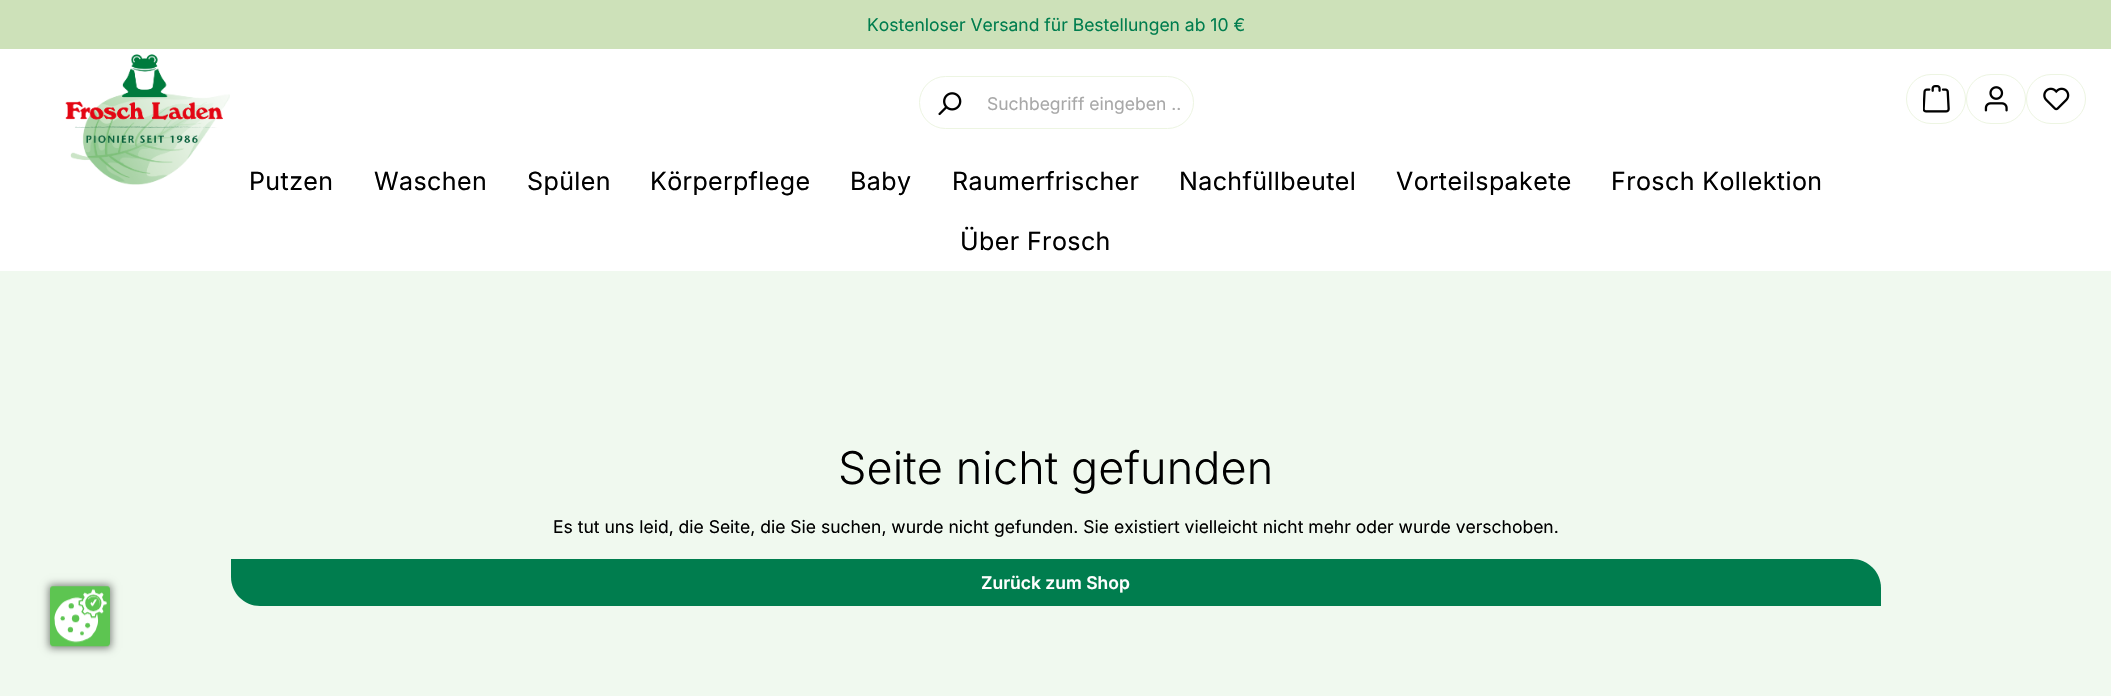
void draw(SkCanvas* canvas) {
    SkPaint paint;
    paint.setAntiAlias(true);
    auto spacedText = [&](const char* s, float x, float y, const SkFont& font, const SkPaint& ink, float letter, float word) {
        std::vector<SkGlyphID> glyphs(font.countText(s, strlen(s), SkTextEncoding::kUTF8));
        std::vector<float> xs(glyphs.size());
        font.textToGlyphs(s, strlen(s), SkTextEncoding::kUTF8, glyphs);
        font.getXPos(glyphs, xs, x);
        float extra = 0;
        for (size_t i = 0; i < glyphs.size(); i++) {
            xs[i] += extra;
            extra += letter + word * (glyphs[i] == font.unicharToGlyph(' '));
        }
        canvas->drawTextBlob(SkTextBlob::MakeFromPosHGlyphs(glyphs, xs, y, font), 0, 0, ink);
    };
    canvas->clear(0xFFF0F9EF);
    paint.setColor(0xFFCDE1B9);
    canvas->drawRect(SkRect::MakeXYWH(0, 0, 2111, 49), paint);
    SkFont font1(fontMgr->matchFamilyStyle("Inter", SkFontStyle::Normal()), 17.5f);
    font1.setSubpixel(true);
    paint.setColor(0xFF007D4E);
    canvas->drawString("Kostenloser Versand für Bestellungen ab 10 €", 867, 31, font1, paint);
    paint.setColor(0xFFFFFFFF);
    canvas->drawRect(SkRect::MakeXYWH(0, 49, 2111, 222), paint);
    canvas->drawImageRect(SkImages::DeferredFromEncodedData(SkData::MakeFromFileName("img1.png")), SkRect::MakeXYWH(65, 54, 165, 131), SkSamplingOptions());
    paint.setStyle(SkPaint::kStroke_Style);
    paint.setStrokeWidth(1);
    paint.setColor(0xFFEDF5E2);
    canvas->drawRoundRect(SkRect::MakeXYWH(919.5f, 76.5f, 274, 52), 26, 26, paint);
    canvas->drawImageRect(SkImages::DeferredFromEncodedData(SkData::MakeFromFileName("img2.png")), SkRect::MakeXYWH(938, 92, 24, 24), SkSamplingOptions());
    paint.setStyle(SkPaint::kFill_Style);
    paint.setColor(0xFFA8A8A8);
    canvas->drawString("Suchbegriff eingeben ..", 987, 110, font1, paint);
    paint.setStyle(SkPaint::kStroke_Style);
    paint.setColor(0xFFEDF5E2);
    canvas->drawRoundRect(SkRect::MakeXYWH(1906.5f, 74.5f, 59, 49), 24.5f, 24.5f, paint);
    canvas->drawImageRect(SkImages::DeferredFromEncodedData(SkData::MakeFromFileName("img3.png")), SkRect::MakeXYWH(1923, 85, 27, 28), SkSamplingOptions());
    canvas->drawRoundRect(SkRect::MakeXYWH(1966.5f, 74.5f, 59, 49), 24.5f, 24.5f, paint);
    canvas->drawImageRect(SkImages::DeferredFromEncodedData(SkData::MakeFromFileName("img4.png")), SkRect::MakeXYWH(1984, 86, 24, 26), SkSamplingOptions());
    canvas->drawRoundRect(SkRect::MakeXYWH(2026.5f, 74.5f, 59, 49), 24.5f, 24.5f, paint);
    canvas->drawImageRect(SkImages::DeferredFromEncodedData(SkData::MakeFromFileName("img5.png")), SkRect::MakeXYWH(2043, 87, 27, 24), SkSamplingOptions());
    SkFont font2(fontMgr->matchFamilyStyle("Inter", SkFontStyle::Normal()), 25);
    font2.setSubpixel(true);
    paint.setStyle(SkPaint::kFill_Style);
    paint.setColor(0xFF000000);
    spacedText("Putzen", 249, 190, font2, paint, 0.4f, 0);
    spacedText("Waschen", 374, 190, font2, paint, 0.4f, 0);
    spacedText("Spülen", 527, 190, font2, paint, 0.4f, 0);
    spacedText("Körperpflege", 650, 190, font2, paint, 0.4f, 0);
    spacedText("Baby", 850, 190, font2, paint, 0.4f, 0);
    spacedText("Raumerfrischer", 952, 190, font2, paint, 0.4f, 0);
    spacedText("Nachfüllbeutel", 1179, 190, font2, paint, 0.4f, 0);
    spacedText("Vorteilspakete", 1396, 190, font2, paint, 0.4f, 0);
    spacedText("Frosch Kollektion", 1611, 190, font2, paint, 0.4f, 0);
    spacedText("Über Frosch", 960, 250, font2, paint, 0.4f, 0);
    SkFont font3(fontMgr->matchFamilyStyle("Inter", SkFontStyle(300, SkFontStyle::kNormal_Width, SkFontStyle::kUpright_Slant)), 45);
    font3.setSubpixel(true);
    spacedText("Seite nicht gefunden", 838, 484, font3, paint, 0.1f, 0);
    canvas->drawString("Es tut uns leid, die Seite, die Sie suchen, wurde nicht gefunden. Sie existiert vielleicht nicht mehr oder wurde verschoben.", 553, 533, font1, paint);
    paint.setColor(0xFF007D4E);
    canvas->drawPath(SkPathBuilder().moveTo(231, 559).lineTo(1852, 559).cubicTo(1868, 559, 1881, 572, 1881, 588).lineTo(1881, 606).lineTo(260, 606).cubicTo(244, 606, 231, 593, 231, 577).close().detach(), paint);
    SkFont font4(fontMgr->matchFamilyStyle("Inter", SkFontStyle(600, SkFontStyle::kNormal_Width, SkFontStyle::kUpright_Slant)), 17.5f);
    font4.setSubpixel(true);
    paint.setColor(0xFFFFFFFF);
    canvas->drawString("Zurück zum Shop", 981, 589, font4, paint);
    paint.setColor(0x80000000);
    paint.setMaskFilter(SkMaskFilter::MakeBlur(kNormal_SkBlurStyle, 4));
    canvas->drawRect(SkRect::MakeXYWH(49, 585, 62, 63), paint);
    paint.setMaskFilter(nullptr);
    canvas->drawImageRect(SkImages::DeferredFromEncodedData(SkData::MakeFromFileName("img6.png")), SkRect::MakeXYWH(50, 586, 60, 61), SkSamplingOptions());
}
